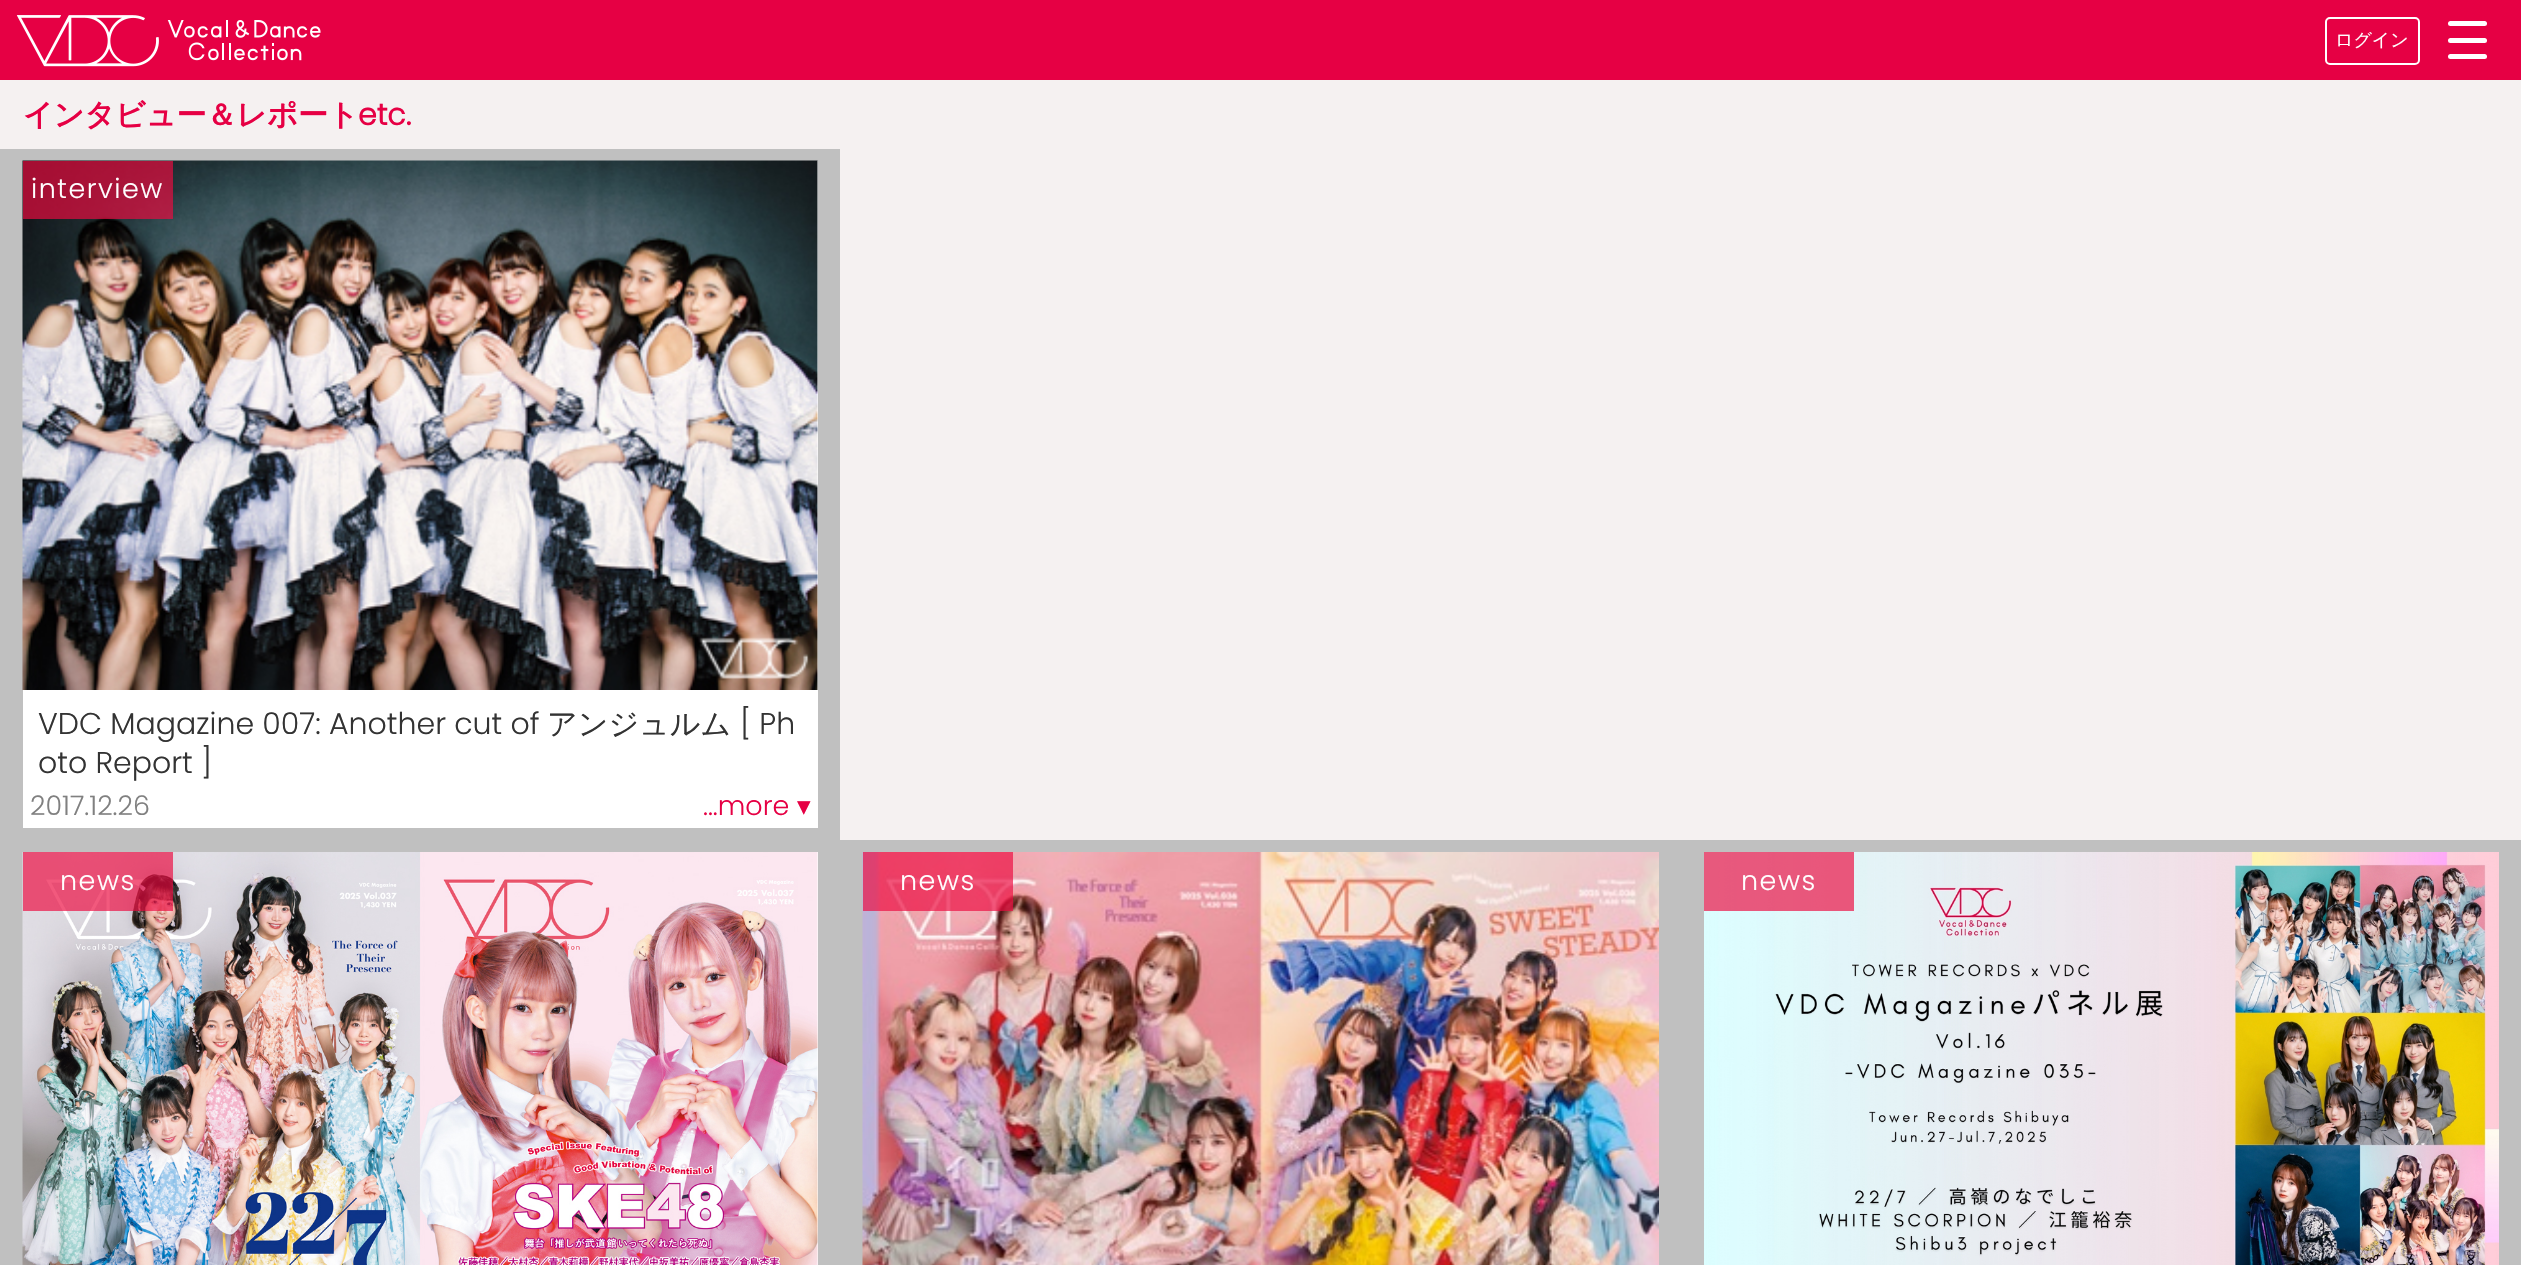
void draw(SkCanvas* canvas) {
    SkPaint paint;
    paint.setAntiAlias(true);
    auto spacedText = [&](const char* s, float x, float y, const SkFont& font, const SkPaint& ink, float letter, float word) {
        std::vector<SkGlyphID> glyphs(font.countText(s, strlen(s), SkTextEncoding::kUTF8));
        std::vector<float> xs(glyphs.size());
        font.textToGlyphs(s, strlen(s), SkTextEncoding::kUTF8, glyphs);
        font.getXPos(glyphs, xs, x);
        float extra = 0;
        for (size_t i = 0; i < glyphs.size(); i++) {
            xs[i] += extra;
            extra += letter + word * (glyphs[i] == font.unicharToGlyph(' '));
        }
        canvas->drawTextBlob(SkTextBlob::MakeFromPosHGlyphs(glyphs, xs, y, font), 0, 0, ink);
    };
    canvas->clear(0xFFF5F1F1);
    paint.setColor(0xFFE60044);
    canvas->drawRect(SkRect::MakeXYWH(0, 0, 2521, 80), paint);
    canvas->drawImageRect(SkImages::DeferredFromEncodedData(SkData::MakeFromFileName("img1.png")), SkRect::MakeXYWH(16, 15, 305, 52), SkSamplingOptions());
    paint.setStyle(SkPaint::kStroke_Style);
    paint.setStrokeWidth(2);
    paint.setColor(0xFFFFFFFF);
    canvas->drawRoundRect(SkRect::MakeXYWH(2326, 18, 93, 46), 4, 4, paint);
    SkFont font1(fontMgr->matchFamilyStyle("WenQuanYi Zen Hei", SkFontStyle(500, SkFontStyle::kNormal_Width, SkFontStyle::kUpright_Slant)), 18);
    font1.setSubpixel(true);
    paint.setStyle(SkPaint::kFill_Style);
    canvas->drawString("ログイン", 2335, 46, font1, paint);
    canvas->drawRoundRect(SkRect::MakeXYWH(2448, 21, 39, 5), 2.5f, 2.5f, paint);
    canvas->drawRoundRect(SkRect::MakeXYWH(2448, 38, 39, 5), 2.5f, 2.5f, paint);
    canvas->drawRoundRect(SkRect::MakeXYWH(2448, 54, 39, 5), 2.5f, 2.5f, paint);
    SkFont font2(fontMgr->matchFamilyStyle("WenQuanYi Zen Hei", SkFontStyle::Bold()), 30);
    font2.setSubpixel(true);
    paint.setColor(0xFFE60044);
    canvas->drawString("インタビュー＆レポート", 23, 125, font2, paint);
    SkFont font3(fontMgr->matchFamilyStyle("Poppins", SkFontStyle::Bold()), 30);
    font3.setSubpixel(true);
    canvas->drawString("etc.", 358, 125, font3, paint);
    paint.setColor(0xFFC0C0C0);
    canvas->drawRect(SkRect::MakeXYWH(0, 149, 840, 1116), paint);
    paint.setColor(0xFFFFFFFF);
    canvas->drawRect(SkRect::MakeXYWH(23, 161, 795, 667), paint);
    canvas->drawImageRect(SkImages::DeferredFromEncodedData(SkData::MakeFromFileName("img2.png")), SkRect::MakeXYWH(22, 160, 796, 530), SkSamplingOptions());
    paint.setColor(0xADEC0B3F);
    canvas->drawRect(SkRect::MakeXYWH(23, 161, 150, 58), paint);
    SkFont font4(fontMgr->matchFamilyStyle("Poppins", SkFontStyle(300, SkFontStyle::kNormal_Width, SkFontStyle::kUpright_Slant)), 27);
    font4.setSubpixel(true);
    paint.setColor(0xFFFFFFFF);
    spacedText("interview", 31, 198, font4, paint, 1.5f, 0);
    SkFont font5(fontMgr->matchFamilyStyle("Poppins", SkFontStyle(300, SkFontStyle::kNormal_Width, SkFontStyle::kUpright_Slant)), 30);
    font5.setSubpixel(true);
    paint.setColor(0xFF333333);
    canvas->drawString("VDC Magazine 007: Another cut of", 38, 734, font5, paint);
    SkFont font6(fontMgr->matchFamilyStyle("WenQuanYi Zen Hei", SkFontStyle(500, SkFontStyle::kNormal_Width, SkFontStyle::kUpright_Slant)), 30);
    font6.setSubpixel(true);
    canvas->drawString("アンジュルム", 547, 734, font6, paint);
    canvas->drawString("[ Ph", 740, 734, font5, paint);
    canvas->drawString("oto Report ]", 38, 773, font5, paint);
    paint.setColor(0xFF808080);
    canvas->drawString("2017.12.26", 30, 815, font4, paint);
    paint.setColor(0xFFE60044);
    canvas->drawString("...more", 703, 815, font4, paint);
    SkFont font7(fontMgr->matchFamilyStyle("DejaVu Sans", SkFontStyle::Normal()), 27);
    font7.setSubpixel(true);
    canvas->drawString("▾", 797, 815, font7, paint);
    paint.setColor(0xFFFFFFFF);
    canvas->drawRect(SkRect::MakeXYWH(817, 852, 1, 413), paint);
    canvas->drawImageRect(SkImages::DeferredFromEncodedData(SkData::MakeFromFileName("img3.png")), SkRect::MakeXYWH(22, 852, 796, 413), SkSamplingOptions());
    paint.setColor(0xADEC0B3F);
    canvas->drawRect(SkRect::MakeXYWH(23, 852, 150, 59), paint);
    paint.setColor(0xFFFFFFFF);
    spacedText("news", 60, 890, font4, paint, 1.5f, 0);
    paint.setColor(0xFFC0C0C0);
    canvas->drawRect(SkRect::MakeXYWH(840, 840, 1681, 425), paint);
    canvas->drawImageRect(SkImages::DeferredFromEncodedData(SkData::MakeFromFileName("img4.png")), SkRect::MakeXYWH(862, 852, 797, 413), SkSamplingOptions());
    paint.setColor(0xADEC0B3F);
    canvas->drawRect(SkRect::MakeXYWH(863, 852, 150, 59), paint);
    paint.setColor(0xFFFFFFFF);
    spacedText("news", 900, 890, font4, paint, 1.5f, 0);
    canvas->drawImageRect(SkImages::DeferredFromEncodedData(SkData::MakeFromFileName("img5.png")), SkRect::MakeXYWH(1704, 852, 795, 413), SkSamplingOptions());
    paint.setColor(0xADEC0B3F);
    canvas->drawRect(SkRect::MakeXYWH(1704, 852, 150, 59), paint);
    paint.setColor(0xFFFFFFFF);
    spacedText("news", 1741, 890, font4, paint, 1.5f, 0);
}
